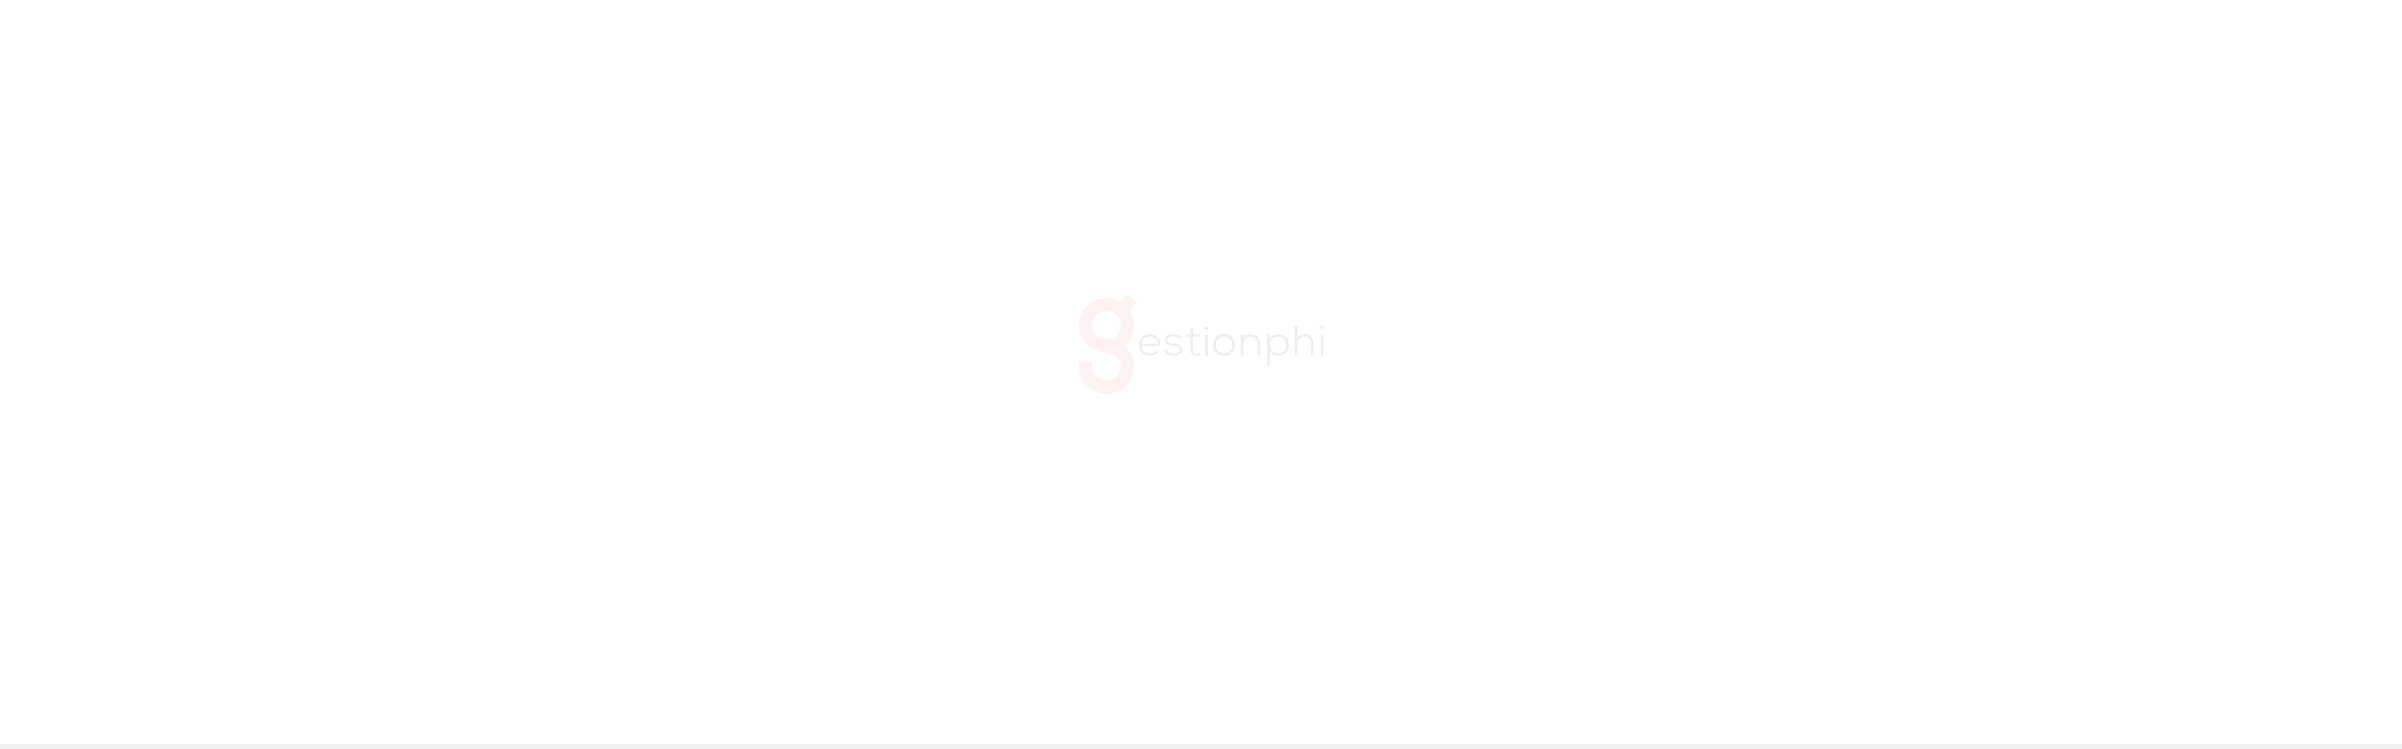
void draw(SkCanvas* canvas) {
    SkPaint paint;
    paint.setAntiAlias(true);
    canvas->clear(0xFFFFFFFF);
    canvas->drawImageRect(SkImages::DeferredFromEncodedData(SkData::MakeFromFileName("img1.png")), SkRect::MakeXYWH(1079, 294, 245, 100), SkSamplingOptions());
    paint.setColor(0xFFF0F0F0);
    canvas->drawRoundRect(SkRect::MakeXYWH(0, 744, 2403, 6), 1, 1, paint);
}
